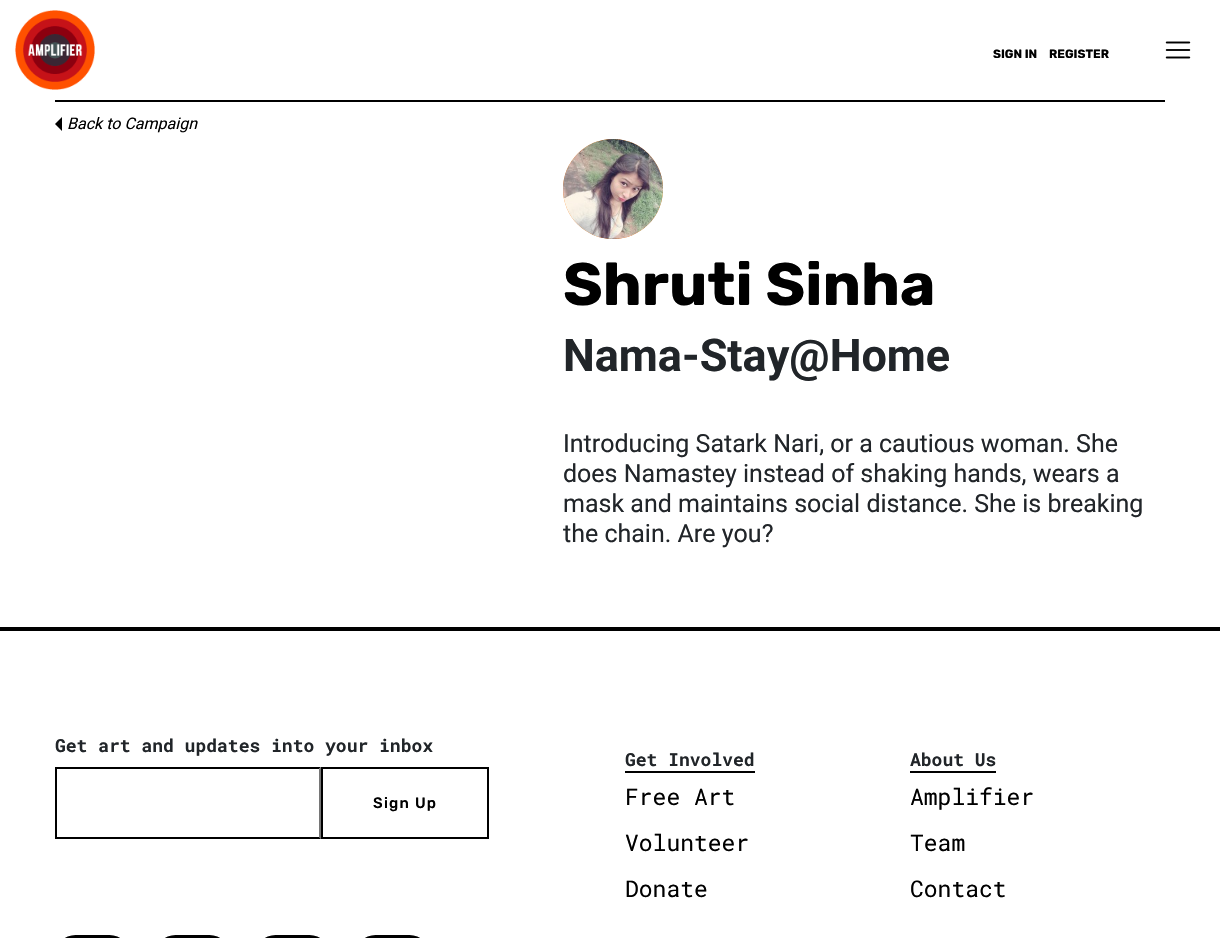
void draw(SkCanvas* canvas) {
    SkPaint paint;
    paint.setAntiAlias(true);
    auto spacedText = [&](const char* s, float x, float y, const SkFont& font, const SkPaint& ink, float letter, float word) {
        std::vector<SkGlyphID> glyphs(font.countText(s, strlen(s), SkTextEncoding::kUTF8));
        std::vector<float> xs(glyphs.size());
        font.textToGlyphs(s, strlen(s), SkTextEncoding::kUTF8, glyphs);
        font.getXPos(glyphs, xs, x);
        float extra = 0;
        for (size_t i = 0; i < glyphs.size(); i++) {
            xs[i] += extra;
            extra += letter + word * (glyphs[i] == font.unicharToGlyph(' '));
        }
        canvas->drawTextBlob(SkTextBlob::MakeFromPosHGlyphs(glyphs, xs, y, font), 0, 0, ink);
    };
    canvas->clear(0xFFFFFFFF);
    canvas->drawImageRect(SkImages::DeferredFromEncodedData(SkData::MakeFromFileName("img1.png")), SkRect::MakeXYWH(15, 10, 80, 80), SkSamplingOptions());
    SkFont font1(fontMgr->matchFamilyStyle("Rubik", SkFontStyle::Bold()), 12);
    font1.setSubpixel(true);
    paint.setColor(0xFF000000);
    canvas->drawString("SIGN IN", 993, 58, font1, paint);
    canvas->drawString("REGISTER", 1049, 58, font1, paint);
    canvas->drawImageRect(SkImages::DeferredFromEncodedData(SkData::MakeFromFileName("img2.png")), SkRect::MakeXYWH(1165, 41, 26, 18), SkSamplingOptions());
    canvas->drawRect(SkRect::MakeXYWH(55, 100, 1110, 2), paint);
    canvas->drawPath(SkPathBuilder().moveTo(62, 117).lineTo(62, 131).lineTo(55, 124).close().detach(), paint);
    SkFont font2(fontMgr->matchFamilyStyle("Roboto", SkFontStyle::Italic()), 16);
    font2.setSubpixel(true);
    canvas->drawString("Back to Campaign", 67, 129, font2, paint);
    paint.setColor(0xFFFD7E14);
    canvas->drawCircle(613, 189, 50, paint);
    canvas->drawImageRect(SkImages::DeferredFromEncodedData(SkData::MakeFromFileName("img3.png")), SkRect::MakeXYWH(563, 139, 100, 100), SkSamplingOptions());
    SkFont font3(fontMgr->matchFamilyStyle("Rubik", SkFontStyle::Bold()), 60);
    font3.setSubpixel(true);
    paint.setColor(0xFF000000);
    canvas->drawString("Shruti Sinha", 563, 305, font3, paint);
    SkFont font4(fontMgr->matchFamilyStyle("Roboto", SkFontStyle::Bold()), 45);
    font4.setSubpixel(true);
    paint.setColor(0xFF212529);
    canvas->drawString("Nama-Stay@Home", 563, 371, font4, paint);
    SkFont font5(fontMgr->matchFamilyStyle("Roboto", SkFontStyle::Normal()), 25);
    font5.setSubpixel(true);
    canvas->drawString("Introducing Satark Nari, or a cautious woman. She", 563, 452, font5, paint);
    canvas->drawString("does Namastey instead of shaking hands, wears a", 563, 482, font5, paint);
    canvas->drawString("mask and maintains social distance. She is breaking", 563, 512, font5, paint);
    canvas->drawString("the chain. Are you?", 563, 542, font5, paint);
    paint.setColor(0xFF000000);
    canvas->drawRect(SkRect::MakeXYWH(0, 627, 1220, 4), paint);
    SkFont font6(fontMgr->matchFamilyStyle("Roboto Mono", SkFontStyle::Bold()), 18);
    font6.setSubpixel(true);
    paint.setColor(0xFF212529);
    canvas->drawString("Get art and updates into your inbox", 55, 752, font6, paint);
    paint.setColor(0xFF000000);
    canvas->drawPath(SkPathBuilder().moveTo(55, 767).lineTo(321, 767).lineTo(319, 769).lineTo(57, 769).close().detach(), paint);
    paint.setColor(0xFF767676);
    canvas->drawPath(SkPathBuilder().moveTo(321, 767).lineTo(321, 839).lineTo(319, 837).lineTo(319, 769).close().detach(), paint);
    paint.setColor(0xFF000000);
    canvas->drawPath(SkPathBuilder().moveTo(321, 839).lineTo(55, 839).lineTo(57, 837).lineTo(319, 837).close().detach(), paint);
    canvas->drawRect(SkRect::MakeXYWH(55, 767, 2, 72), paint);
    paint.setStyle(SkPaint::kStroke_Style);
    paint.setStrokeWidth(2);
    canvas->drawRect(SkRect::MakeXYWH(322, 768, 166, 70), paint);
    SkFont font7(fontMgr->matchFamilyStyle("Rubik", SkFontStyle(500, SkFontStyle::kNormal_Width, SkFontStyle::kUpright_Slant)), 15);
    font7.setSubpixel(true);
    paint.setStyle(SkPaint::kFill_Style);
    spacedText("Sign Up", 373, 808, font7, paint, 1.25f, 0);
    paint.setColor(0xFF212529);
    canvas->drawString("Get Involved", 625, 766, font6, paint);
    paint.setColor(0xFF000000);
    canvas->drawRect(SkRect::MakeXYWH(625, 771, 130, 2), paint);
    SkFont font8(fontMgr->matchFamilyStyle("Roboto Mono", SkFontStyle::Normal()), 23);
    font8.setSubpixel(true);
    canvas->drawString("Free Art", 625, 805, font8, paint);
    canvas->drawString("Volunteer", 625, 851, font8, paint);
    canvas->drawString("Donate", 625, 897, font8, paint);
    paint.setColor(0xFF212529);
    canvas->drawString("About Us", 910, 766, font6, paint);
    paint.setColor(0xFF000000);
    canvas->drawRect(SkRect::MakeXYWH(910, 771, 86, 2), paint);
    canvas->drawString("Amplifier", 910, 805, font8, paint);
    canvas->drawString("Team", 910, 851, font8, paint);
    canvas->drawString("Contact", 910, 897, font8, paint);
    canvas->drawRoundRect(SkRect::MakeXYWH(55, 935, 75, 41), 37.5f, 37.5f, paint);
    canvas->drawRoundRect(SkRect::MakeXYWH(155, 935, 75, 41), 37.5f, 37.5f, paint);
    canvas->drawRoundRect(SkRect::MakeXYWH(255, 935, 75, 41), 37.5f, 37.5f, paint);
    canvas->drawRoundRect(SkRect::MakeXYWH(355, 935, 75, 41), 37.5f, 37.5f, paint);
}
